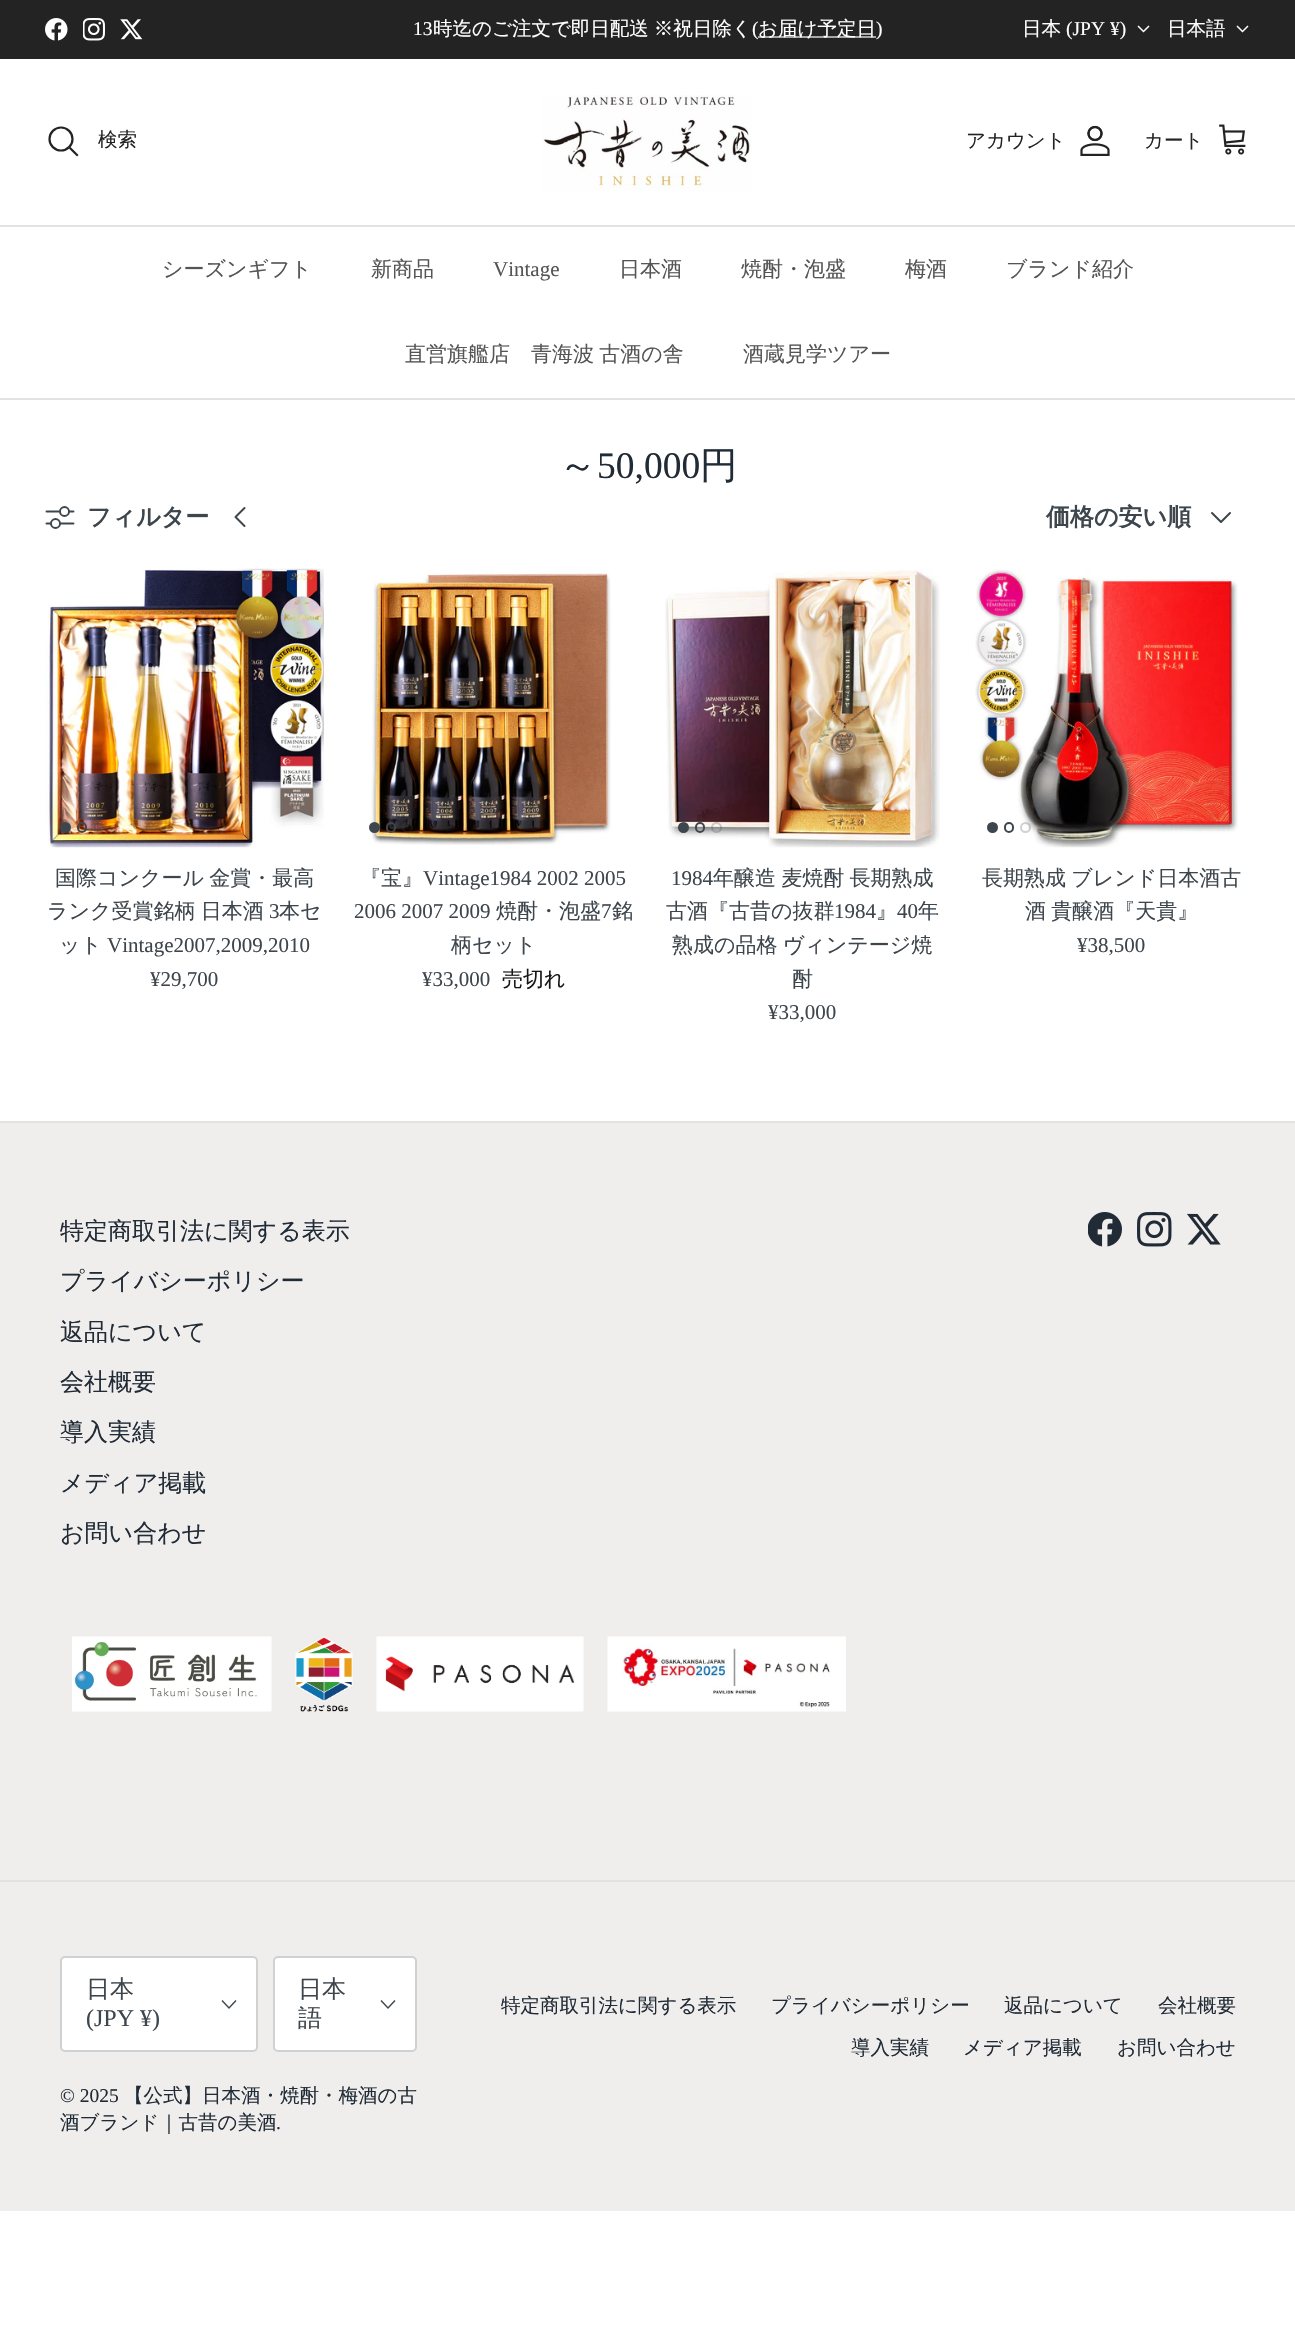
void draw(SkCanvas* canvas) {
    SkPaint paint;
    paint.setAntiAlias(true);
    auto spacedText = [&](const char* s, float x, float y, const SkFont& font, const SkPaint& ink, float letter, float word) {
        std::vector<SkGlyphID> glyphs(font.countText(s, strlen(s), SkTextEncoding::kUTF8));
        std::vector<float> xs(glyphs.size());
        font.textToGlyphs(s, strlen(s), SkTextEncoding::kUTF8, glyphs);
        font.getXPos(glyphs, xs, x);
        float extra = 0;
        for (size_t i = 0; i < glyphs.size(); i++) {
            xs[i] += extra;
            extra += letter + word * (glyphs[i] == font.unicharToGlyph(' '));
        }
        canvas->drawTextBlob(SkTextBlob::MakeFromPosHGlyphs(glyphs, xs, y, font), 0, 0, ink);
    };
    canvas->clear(0xFFFFFFFF);
    paint.setColor(0xFF232323);
    canvas->drawRect(SkRect::MakeXYWH(0, 0, 1295, 59), paint);
    canvas->drawImageRect(SkImages::DeferredFromEncodedData(SkData::MakeFromFileName("img1.png")), SkRect::MakeXYWH(45, 18, 23, 23), SkSamplingOptions());
    canvas->drawImageRect(SkImages::DeferredFromEncodedData(SkData::MakeFromFileName("img2.png")), SkRect::MakeXYWH(83, 18, 22, 23), SkSamplingOptions());
    canvas->drawImageRect(SkImages::DeferredFromEncodedData(SkData::MakeFromFileName("img3.png")), SkRect::MakeXYWH(120, 19, 23, 21), SkSamplingOptions());
    SkFont font1(fontMgr->matchFamilyStyle("Liberation Serif", SkFontStyle::Normal()), 19.5f);
    font1.setSubpixel(true);
    paint.setColor(0xFFFFFFFF);
    canvas->drawString("13", 413, 35, font1, paint);
    SkFont font2(fontMgr->matchFamilyStyle("WenQuanYi Zen Hei", SkFontStyle(500, SkFontStyle::kNormal_Width, SkFontStyle::kUpright_Slant)), 19.5f);
    font2.setSubpixel(true);
    spacedText("時迄のご注文で即日配送 ※祝日除く", 433, 35, font2, paint, 0, -1);
    canvas->drawString("(", 752, 35, font1, paint);
    paint.setColor(0xFFA7A7A7);
    canvas->drawRect(SkRect::MakeXYWH(758, 36, 118, 2), paint);
    paint.setColor(0xFFFFFFFF);
    canvas->drawString("お届け予定日", 758, 35, font2, paint);
    canvas->drawString(")", 876, 35, font1, paint);
    canvas->drawString("日本", 1022, 35, font2, paint);
    canvas->drawString("(JPY ¥)", 1066, 35, font1, paint);
    paint.setStyle(SkPaint::kStroke_Style);
    paint.setStrokeWidth(1.5f);
    canvas->drawPath(SkPathBuilder().moveTo(1149, 26).lineTo(1143.5f, 31.5f).lineTo(1138, 26).detach(), paint);
    paint.setStyle(SkPaint::kFill_Style);
    canvas->drawString("日本語", 1167, 35, font2, paint);
    paint.setStyle(SkPaint::kStroke_Style);
    canvas->drawPath(SkPathBuilder().moveTo(1248, 26).lineTo(1242.5f, 31.5f).lineTo(1237, 26).detach(), paint);
    paint.setStyle(SkPaint::kFill_Style);
    paint.setColor(0xFFE2E2E2);
    canvas->drawRect(SkRect::MakeXYWH(0, 225, 1295, 2), paint);
    paint.setStyle(SkPaint::kStroke_Style);
    paint.setStrokeWidth(2.2f);
    paint.setColor(0xFF232323);
    canvas->drawCircle(61, 139, 11.5f, paint);
    paint.setStyle(SkPaint::kFill_Style);
    canvas->drawString("検索", 98, 146, font2, paint);
    paint.setStyle(SkPaint::kStroke_Style);
    paint.setStrokeCap(SkPaint::kSquare_Cap);
    canvas->drawPath(SkPathBuilder().moveTo(70.5f, 148.5f).lineTo(77, 155).detach(), paint);
    canvas->drawImageRect(SkImages::DeferredFromEncodedData(SkData::MakeFromFileName("img4.png")), SkRect::MakeXYWH(542, 95, 210, 96), SkSamplingOptions());
    paint.setStyle(SkPaint::kFill_Style);
    canvas->drawString("アカウント", 966, 147, font2, paint);
    canvas->drawImageRect(SkImages::DeferredFromEncodedData(SkData::MakeFromFileName("img5.png")), SkRect::MakeXYWH(1080, 125, 30, 31), SkSamplingOptions());
    canvas->drawString("カート", 1144, 147, font2, paint);
    canvas->drawImageRect(SkImages::DeferredFromEncodedData(SkData::MakeFromFileName("img6.png")), SkRect::MakeXYWH(1219, 124, 27, 31), SkSamplingOptions());
    paint.setColor(0xFFE2E2E2);
    canvas->drawRect(SkRect::MakeXYWH(0, 398, 1295, 2), paint);
    SkFont font3(fontMgr->matchFamilyStyle("WenQuanYi Zen Hei", SkFontStyle(500, SkFontStyle::kNormal_Width, SkFontStyle::kUpright_Slant)), 21);
    font3.setSubpixel(true);
    paint.setColor(0xFF555555);
    canvas->drawString("シーズンギフト", 162, 276, font3, paint);
    canvas->drawString("新商品", 371, 276, font3, paint);
    SkFont font4(fontMgr->matchFamilyStyle("Liberation Serif", SkFontStyle::Normal()), 21);
    font4.setSubpixel(true);
    canvas->drawString("Vintage", 493, 276, font4, paint);
    canvas->drawString("日本酒", 619, 276, font3, paint);
    canvas->drawString("焼酎・泡盛", 741, 276, font3, paint);
    canvas->drawString("梅酒", 905, 276, font3, paint);
    canvas->drawString("ブランド紹介", 1006, 276, font3, paint);
    spacedText("直営旗艦店　青海波 古酒の舎", 405, 361, font3, paint, 0, -1);
    canvas->drawString("酒蔵見学ツアー", 743, 361, font3, paint);
    SkFont font5(fontMgr->matchFamilyStyle("WenQuanYi Zen Hei", SkFontStyle(500, SkFontStyle::kNormal_Width, SkFontStyle::kUpright_Slant)), 37.5f);
    font5.setSubpixel(true);
    paint.setColor(0xFF212B36);
    canvas->drawString("～", 559, 478, font5, paint);
    SkFont font6(fontMgr->matchFamilyStyle("Liberation Serif", SkFontStyle::Normal()), 37.5f);
    font6.setSubpixel(true);
    canvas->drawString("50,000", 597, 478, font6, paint);
    canvas->drawString("円", 700, 478, font5, paint);
    paint.setStyle(SkPaint::kStroke_Style);
    paint.setStrokeWidth(1.9f);
    paint.setStrokeCap(SkPaint::kRound_Cap);
    paint.setStrokeJoin(SkPaint::kRound_Join);
    paint.setColor(0xFF3E464D);
    canvas->drawPath(SkPathBuilder().moveTo(46.5f, 511.5f).lineTo(73.5f, 511.5f).moveTo(46.5f, 523.5f).lineTo(73.5f, 523.5f).detach(), paint);
    paint.setStyle(SkPaint::kFill_Style);
    paint.setColor(0xFFFFFFFF);
    canvas->drawCircle(64.5f, 511.5f, 4.5f, paint);
    paint.setStyle(SkPaint::kStroke_Style);
    paint.setStrokeCap(SkPaint::kButt_Cap);
    paint.setStrokeJoin(SkPaint::kMiter_Join);
    paint.setColor(0xFF3E464D);
    canvas->drawCircle(64.5f, 511.5f, 4.5f, paint);
    paint.setStyle(SkPaint::kFill_Style);
    paint.setColor(0xFFFFFFFF);
    canvas->drawCircle(55.5f, 523.5f, 4.5f, paint);
    paint.setStyle(SkPaint::kStroke_Style);
    paint.setColor(0xFF3E464D);
    canvas->drawCircle(55.5f, 523.5f, 4.5f, paint);
    SkFont font7(fontMgr->matchFamilyStyle("WenQuanYi Zen Hei", SkFontStyle::Bold()), 24);
    font7.setSubpixel(true);
    paint.setStyle(SkPaint::kFill_Style);
    canvas->drawString("フィルター", 87, 525, font7, paint);
    paint.setStyle(SkPaint::kStroke_Style);
    paint.setStrokeWidth(2);
    paint.setStrokeCap(SkPaint::kRound_Cap);
    paint.setStrokeJoin(SkPaint::kRound_Join);
    canvas->drawPath(SkPathBuilder().moveTo(244.5f, 508).lineTo(235.5f, 517).lineTo(244.5f, 526).detach(), paint);
    paint.setStyle(SkPaint::kFill_Style);
    canvas->drawString("価格の安い順", 1046, 525, font7, paint);
    paint.setStyle(SkPaint::kStroke_Style);
    canvas->drawPath(SkPathBuilder().moveTo(1212, 513).lineTo(1221, 522).lineTo(1230, 513).detach(), paint);
    canvas->drawImageRect(SkImages::DeferredFromEncodedData(SkData::MakeFromFileName("img7.png")), SkRect::MakeXYWH(45, 568, 279, 280), SkSamplingOptions());
    paint.setStyle(SkPaint::kFill_Style);
    canvas->drawCircle(65.5f, 827.5f, 4.5f, paint);
    paint.setStyle(SkPaint::kStroke_Style);
    paint.setStrokeCap(SkPaint::kButt_Cap);
    paint.setStrokeJoin(SkPaint::kMiter_Join);
    canvas->drawCircle(65.5f, 827.5f, 4.5f, paint);
    canvas->drawRoundRect(SkRect::MakeXYWH(78, 823, 8, 9), 4, 4, paint);
    paint.setColor(0x403E464D);
    canvas->drawCircle(98.5f, 827.5f, 4.5f, paint);
    paint.setStyle(SkPaint::kFill_Style);
    paint.setColor(0xFF3E464D);
    spacedText("国際コンクール 金賞・最高", 55, 885, font3, paint, 0, -1);
    spacedText("ランク受賞銘柄 日本酒", 47, 918, font3, paint, 0, -1);
    canvas->drawString("3", 269, 918, font4, paint);
    canvas->drawString("本セ", 279, 918, font3, paint);
    canvas->drawString("ット", 59, 952, font3, paint);
    canvas->drawString("Vintage2007,2009,2010", 107, 952, font4, paint);
    canvas->drawString("¥29,700", 150, 986, font4, paint);
    canvas->drawImageRect(SkImages::DeferredFromEncodedData(SkData::MakeFromFileName("img8.png")), SkRect::MakeXYWH(371, 570, 240, 275), SkSamplingOptions());
    canvas->drawCircle(374.5f, 827.5f, 4.5f, paint);
    paint.setStyle(SkPaint::kStroke_Style);
    canvas->drawCircle(374.5f, 827.5f, 4.5f, paint);
    canvas->drawRoundRect(SkRect::MakeXYWH(387, 823, 8, 9), 4, 4, paint);
    paint.setColor(0x403E464D);
    canvas->drawCircle(407.5f, 827.5f, 4.5f, paint);
    paint.setStyle(SkPaint::kFill_Style);
    paint.setColor(0xFF3E464D);
    canvas->drawString("『宝』", 360, 885, font3, paint);
    canvas->drawString("Vintage1984 2002 2005", 423, 885, font4, paint);
    canvas->drawString("2006 2007 2009", 354, 918, font4, paint);
    canvas->drawString("焼酎・泡盛", 496, 918, font3, paint);
    canvas->drawString("7", 601, 918, font4, paint);
    canvas->drawString("銘", 612, 918, font3, paint);
    canvas->drawString("柄セット", 451, 952, font3, paint);
    canvas->drawString("¥33,000", 422, 986, font4, paint);
    paint.setColor(0xFF171717);
    canvas->drawString("売切れ", 502, 986, font3, paint);
    canvas->drawImageRect(SkImages::DeferredFromEncodedData(SkData::MakeFromFileName("img9.png")), SkRect::MakeXYWH(665, 569, 275, 279), SkSamplingOptions());
    paint.setColor(0xFF3E464D);
    canvas->drawCircle(683.5f, 827.5f, 4.5f, paint);
    paint.setStyle(SkPaint::kStroke_Style);
    canvas->drawCircle(683.5f, 827.5f, 4.5f, paint);
    canvas->drawRoundRect(SkRect::MakeXYWH(696, 823, 8, 9), 4, 4, paint);
    paint.setColor(0x403E464D);
    canvas->drawCircle(716.5f, 827.5f, 4.5f, paint);
    paint.setStyle(SkPaint::kFill_Style);
    paint.setColor(0xFF3E464D);
    canvas->drawString("1984", 671, 885, font4, paint);
    spacedText("年醸造 麦焼酎 長期熟成", 713, 885, font3, paint, 0, -1);
    canvas->drawString("古酒『古昔の抜群", 666, 918, font3, paint);
    canvas->drawString("1984", 834, 918, font4, paint);
    canvas->drawString("』", 876, 918, font3, paint);
    canvas->drawString("40", 897, 918, font4, paint);
    canvas->drawString("年", 918, 918, font3, paint);
    spacedText("熟成の品格 ヴィンテージ焼", 672, 952, font3, paint, 0, -1);
    canvas->drawString("酎", 792, 986, font3, paint);
    canvas->drawString("¥33,000", 768, 1019, font4, paint);
    canvas->drawImageRect(SkImages::DeferredFromEncodedData(SkData::MakeFromFileName("img10.png")), SkRect::MakeXYWH(975, 569, 263, 279), SkSamplingOptions());
    canvas->drawCircle(992.5f, 827.5f, 4.5f, paint);
    paint.setStyle(SkPaint::kStroke_Style);
    canvas->drawCircle(992.5f, 827.5f, 4.5f, paint);
    canvas->drawRoundRect(SkRect::MakeXYWH(1005, 823, 8, 9), 4, 4, paint);
    paint.setColor(0x403E464D);
    canvas->drawCircle(1025.5f, 827.5f, 4.5f, paint);
    paint.setStyle(SkPaint::kFill_Style);
    paint.setColor(0xFF3E464D);
    spacedText("長期熟成 ブレンド日本酒古", 982, 885, font3, paint, 0, -1);
    spacedText("酒 貴醸酒『天貴』", 1025, 918, font3, paint, 0, -1);
    canvas->drawString("¥38,500", 1077, 952, font4, paint);
    paint.setColor(0xFFF0EEED);
    canvas->drawRect(SkRect::MakeXYWH(0, 1123, 1295, 1088), paint);
    paint.setColor(0xFFE2E2E2);
    canvas->drawRect(SkRect::MakeXYWH(0, 1121, 1295, 2), paint);
    SkFont font8(fontMgr->matchFamilyStyle("WenQuanYi Zen Hei", SkFontStyle(500, SkFontStyle::kNormal_Width, SkFontStyle::kUpright_Slant)), 24);
    font8.setSubpixel(true);
    paint.setColor(0xFF212B36);
    canvas->drawString("特定商取引法に関する表示", 60, 1239, font8, paint);
    canvas->drawString("プライバシーポリシー", 60, 1289, font8, paint);
    canvas->drawString("返品について", 60, 1340, font8, paint);
    canvas->drawString("会社概要", 60, 1390, font8, paint);
    canvas->drawString("導入実績", 60, 1440, font8, paint);
    canvas->drawString("メディア掲載", 60, 1491, font8, paint);
    canvas->drawString("お問い合わせ", 60, 1541, font8, paint);
    canvas->drawImageRect(SkImages::DeferredFromEncodedData(SkData::MakeFromFileName("img11.png")), SkRect::MakeXYWH(1088, 1212, 34, 35), SkSamplingOptions());
    canvas->drawImageRect(SkImages::DeferredFromEncodedData(SkData::MakeFromFileName("img12.png")), SkRect::MakeXYWH(1137, 1212, 35, 35), SkSamplingOptions());
    canvas->drawImageRect(SkImages::DeferredFromEncodedData(SkData::MakeFromFileName("img13.png")), SkRect::MakeXYWH(1187, 1213, 34, 32), SkSamplingOptions());
    canvas->drawImageRect(SkImages::DeferredFromEncodedData(SkData::MakeFromFileName("img14.png")), SkRect::MakeXYWH(72, 1636, 200, 76), SkSamplingOptions());
    canvas->drawImageRect(SkImages::DeferredFromEncodedData(SkData::MakeFromFileName("img15.png")), SkRect::MakeXYWH(295, 1636, 58, 76), SkSamplingOptions());
    canvas->drawImageRect(SkImages::DeferredFromEncodedData(SkData::MakeFromFileName("img16.png")), SkRect::MakeXYWH(376, 1636, 208, 76), SkSamplingOptions());
    canvas->drawImageRect(SkImages::DeferredFromEncodedData(SkData::MakeFromFileName("img17.png")), SkRect::MakeXYWH(607, 1636, 239, 76), SkSamplingOptions());
    paint.setColor(0xFFE2E2E2);
    canvas->drawRect(SkRect::MakeXYWH(0, 1880, 1295, 2), paint);
    paint.setColor(0xFFFFFFFF);
    canvas->drawRoundRect(SkRect::MakeXYWH(61, 1957, 196, 94), 4, 4, paint);
    paint.setStyle(SkPaint::kStroke_Style);
    paint.setColor(0xFFCFD1D3);
    canvas->drawRoundRect(SkRect::MakeXYWH(61, 1957, 196, 94), 4, 4, paint);
    paint.setStyle(SkPaint::kFill_Style);
    paint.setColor(0xFF3E464D);
    canvas->drawString("日本", 86, 1997, font8, paint);
    SkFont font9(fontMgr->matchFamilyStyle("Liberation Serif", SkFontStyle::Normal()), 24);
    font9.setSubpixel(true);
    canvas->drawString("(JPY ¥)", 86, 2026, font9, paint);
    paint.setStyle(SkPaint::kStroke_Style);
    paint.setStrokeWidth(1.4f);
    canvas->drawPath(SkPathBuilder().moveTo(236, 2000.5f).lineTo(229, 2008).lineTo(222, 2000.5f).detach(), paint);
    paint.setStyle(SkPaint::kFill_Style);
    paint.setColor(0xFFFFFFFF);
    canvas->drawRoundRect(SkRect::MakeXYWH(274, 1957, 142, 94), 4, 4, paint);
    paint.setStyle(SkPaint::kStroke_Style);
    paint.setStrokeWidth(2);
    paint.setColor(0xFFCFD1D3);
    canvas->drawRoundRect(SkRect::MakeXYWH(274, 1957, 142, 94), 4, 4, paint);
    paint.setStyle(SkPaint::kFill_Style);
    paint.setColor(0xFF3E464D);
    canvas->drawString("日本", 298, 1997, font8, paint);
    canvas->drawString("語", 298, 2026, font8, paint);
    paint.setStyle(SkPaint::kStroke_Style);
    paint.setStrokeWidth(1.4f);
    canvas->drawPath(SkPathBuilder().moveTo(395, 2000.5f).lineTo(388, 2008).lineTo(381, 2000.5f).detach(), paint);
    paint.setStyle(SkPaint::kFill_Style);
    paint.setColor(0xFF212B36);
    canvas->drawString("© 2025", 60, 2102, font1, paint);
    canvas->drawString("【公式】日本酒・焼酎・梅酒の古", 124, 2102, font2, paint);
    canvas->drawString("酒ブランド｜古昔の美酒", 60, 2129, font2, paint);
    canvas->drawString(".", 276, 2129, font1, paint);
    canvas->drawString("特定商取引法に関する表示", 501, 2012, font2, paint);
    canvas->drawString("プライバシーポリシー", 771, 2012, font2, paint);
    canvas->drawString("返品について", 1004, 2012, font2, paint);
    canvas->drawString("会社概要", 1158, 2012, font2, paint);
    canvas->drawString("導入実績", 851, 2054, font2, paint);
    canvas->drawString("メディア掲載", 963, 2054, font2, paint);
    canvas->drawString("お問い合わせ", 1117, 2054, font2, paint);
}
